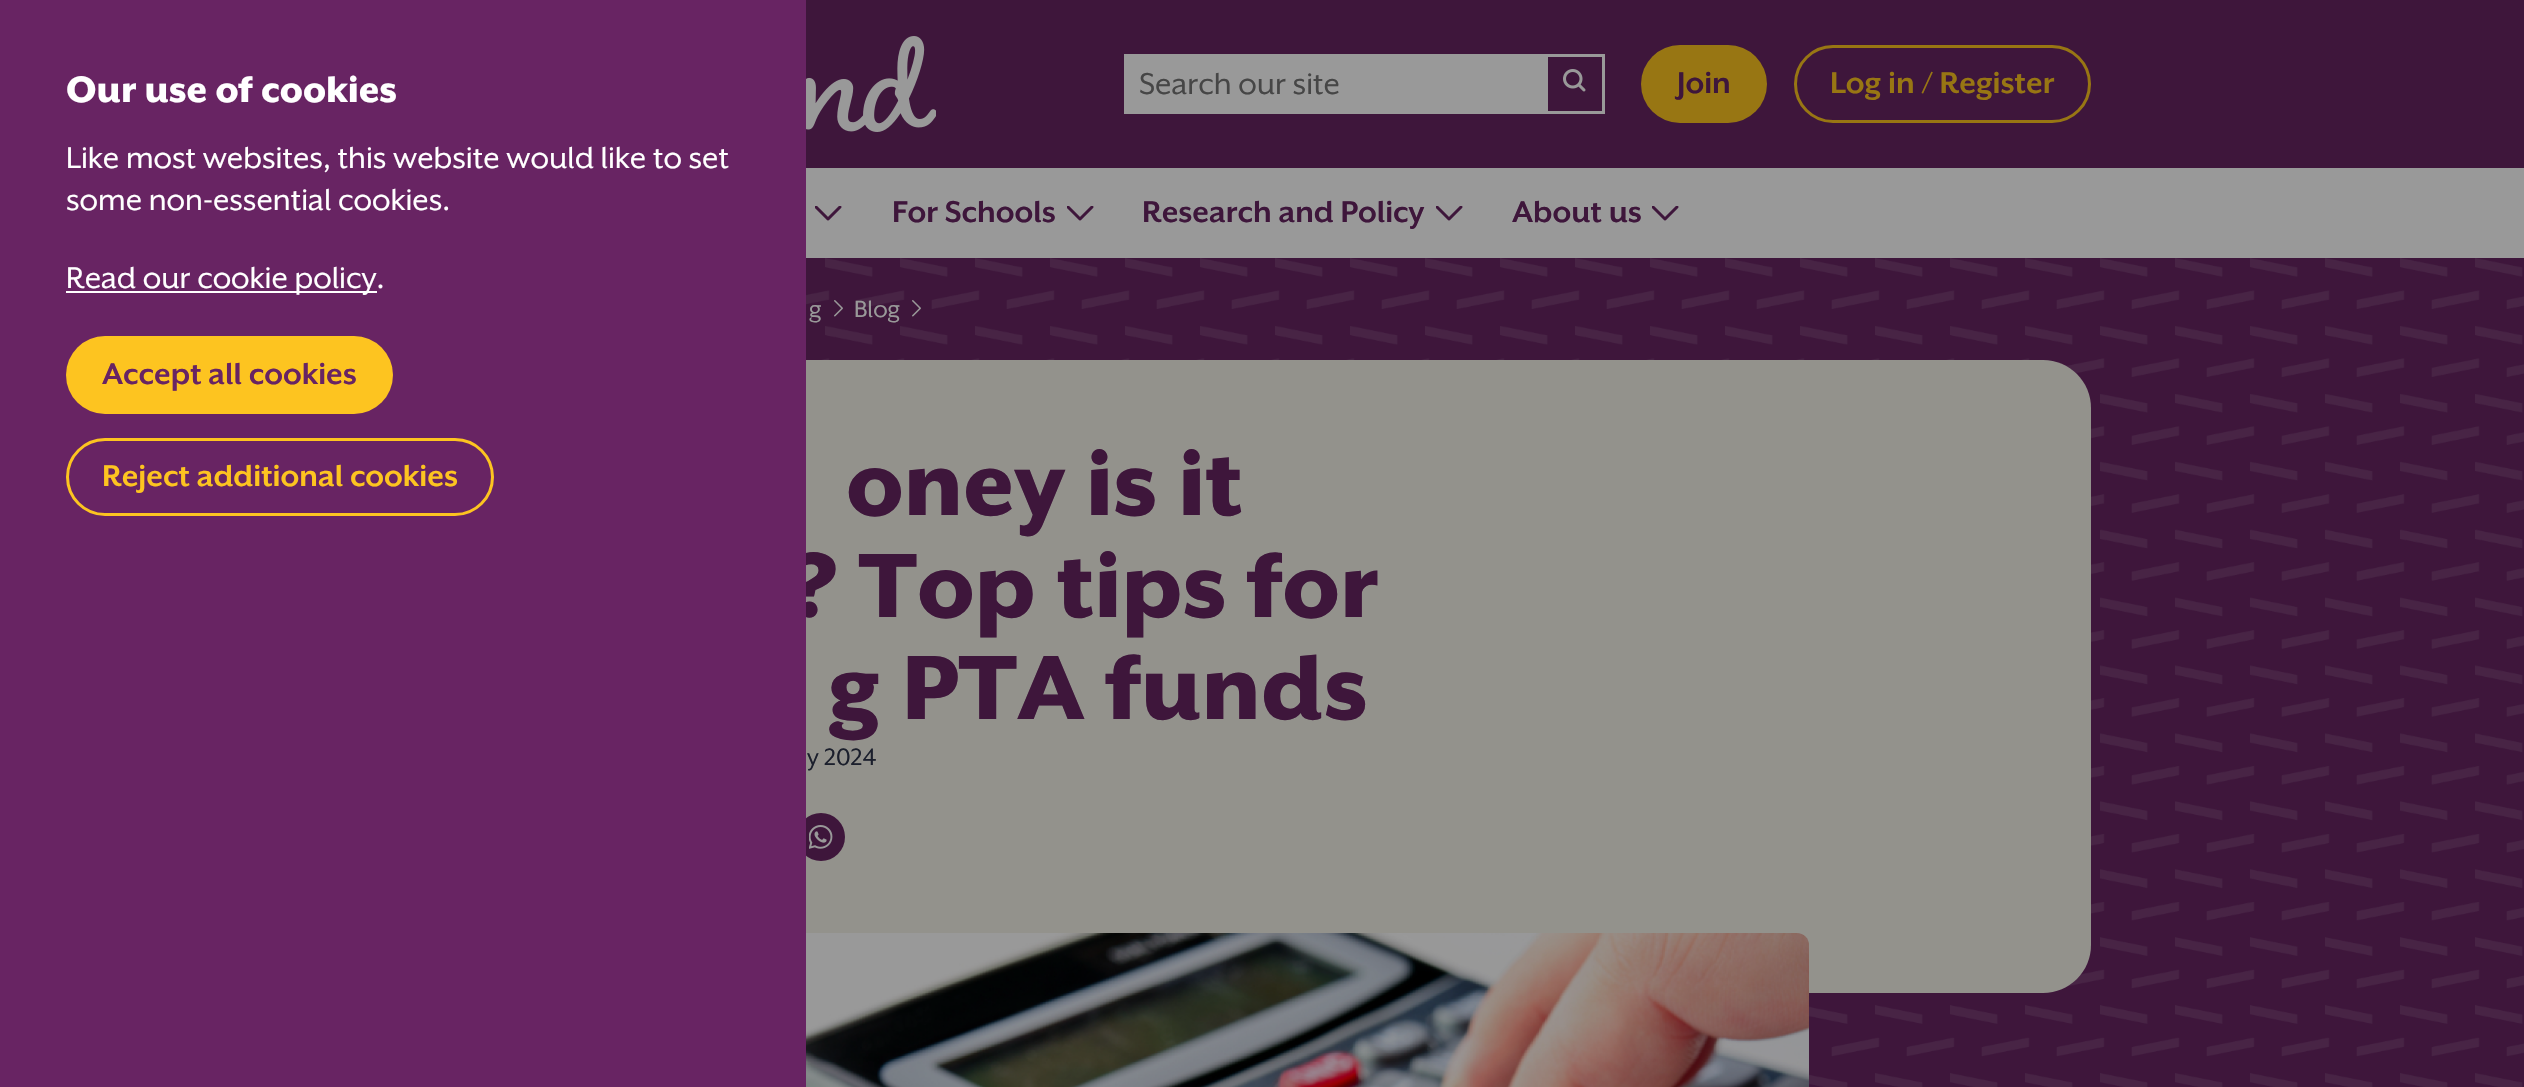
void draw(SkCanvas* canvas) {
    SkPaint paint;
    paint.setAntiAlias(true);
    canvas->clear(0xFF999999);
    paint.setColor(0xFF3E163B);
    canvas->drawRect(SkRect::MakeXYWH(806, 258, 1718, 829), paint);
    canvas->drawImageRect(SkImages::DeferredFromEncodedData(SkData::MakeFromFileName("img4.png")), SkRect::MakeXYWH(806, 258, 1718, 829), SkSamplingOptions());
    paint.setColor(0xFF93928C);
    canvas->drawPath(SkPathBuilder().moveTo(399, 360).lineTo(2043, 360).cubicTo(2069.5f, 360, 2091, 381.5f, 2091, 408).lineTo(2091, 945).cubicTo(2091, 971.5f, 2069.5f, 993, 2043, 993).lineTo(399, 993).close().detach(), paint);
    SkFont font1(fontMgr->matchFamilyStyle("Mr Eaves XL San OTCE", SkFontStyle(900, SkFontStyle::kNormal_Width, SkFontStyle::kUpright_Slant)), 105);
    font1.setSubpixel(true);
    paint.setColor(0xFF3E163B);
    canvas->drawString("? Top tips for", 791, 617, font1, paint);
    canvas->drawCircle(821, 837, 24, paint);
    paint.setColor(0xFF682463);
    canvas->drawRect(SkRect::MakeXYWH(0, 0, 806, 1087), paint);
    SkFont font2(fontMgr->matchFamilyStyle("Mr Eaves XL San OTCE", SkFontStyle(900, SkFontStyle::kNormal_Width, SkFontStyle::kUpright_Slant)), 42);
    font2.setSubpixel(true);
    paint.setColor(0xFFFFFFFF);
    canvas->drawString("Our use of cookies", 66, 102, font2, paint);
    SkFont font3(fontMgr->matchFamilyStyle("Mr Eaves XL San OTCE", SkFontStyle::Normal()), 34.5f);
    font3.setSubpixel(true);
    canvas->drawString("Like most websites, this website would like to set", 66, 168, font3, paint);
    canvas->drawString("some non-essential cookies.", 66, 210, font3, paint);
    canvas->drawRect(SkRect::MakeXYWH(66, 291, 311, 2), paint);
    canvas->drawString("Read our cookie policy.", 66, 288, font3, paint);
    paint.setColor(0xFFFDC420);
    canvas->drawRoundRect(SkRect::MakeXYWH(66, 336, 327, 78), 39, 39, paint);
    SkFont font4(fontMgr->matchFamilyStyle("Mr Eaves XL San OTCE", SkFontStyle::Bold()), 34.5f);
    font4.setSubpixel(true);
    paint.setColor(0xFF682463);
    canvas->drawString("Accept all cookies", 102, 384, font4, paint);
    paint.setStyle(SkPaint::kStroke_Style);
    paint.setStrokeWidth(3);
    paint.setColor(0xFFFDC420);
    canvas->drawRoundRect(SkRect::MakeXYWH(67.5f, 439.5f, 425, 75), 37.5f, 37.5f, paint);
    paint.setStyle(SkPaint::kFill_Style);
    canvas->drawString("Reject additional cookies", 102, 486, font4, paint);
    paint.setColor(0xFF3E163B);
    canvas->drawRect(SkRect::MakeXYWH(806, 0, 1718, 168), paint);
    canvas->drawImageRect(SkImages::DeferredFromEncodedData(SkData::MakeFromFileName("img1.png")), SkRect::MakeXYWH(806, 36, 130, 96), SkSamplingOptions());
    paint.setColor(0xFF999999);
    canvas->drawRect(SkRect::MakeXYWH(1124, 54, 421, 60), paint);
    paint.setColor(0xFF464646);
    canvas->drawString("Search our site", 1139, 94, font3, paint);
    paint.setStyle(SkPaint::kStroke_Style);
    paint.setColor(0xFF999999);
    canvas->drawRect(SkRect::MakeXYWH(1546.5f, 55.5f, 57, 57), paint);
    canvas->drawImageRect(SkImages::DeferredFromEncodedData(SkData::MakeFromFileName("img2.png")), SkRect::MakeXYWH(1563, 69, 23, 23), SkSamplingOptions());
    paint.setStyle(SkPaint::kFill_Style);
    paint.setColor(0xFF987613);
    canvas->drawRoundRect(SkRect::MakeXYWH(1641, 45, 126, 78), 39, 39, paint);
    paint.setColor(0xFF3E163B);
    canvas->drawString("Join", 1677, 93, font4, paint);
    paint.setStyle(SkPaint::kStroke_Style);
    paint.setColor(0xFF987613);
    canvas->drawRoundRect(SkRect::MakeXYWH(1795.5f, 46.5f, 294, 75), 37.5f, 37.5f, paint);
    paint.setStyle(SkPaint::kFill_Style);
    canvas->drawString("Log in / Register", 1830, 93, font4, paint);
    canvas->drawImageRect(SkImages::DeferredFromEncodedData(SkData::MakeFromFileName("img3.png")), SkRect::MakeXYWH(815, 206, 27, 15), SkSamplingOptions());
    paint.setColor(0xFF3E163B);
    canvas->drawString("For Schools", 892, 222, font4, paint);
    canvas->drawImageRect(SkImages::DeferredFromEncodedData(SkData::MakeFromFileName("img3.png")), SkRect::MakeXYWH(1067, 206, 27, 15), SkSamplingOptions());
    canvas->drawString("Research and Policy", 1142, 222, font4, paint);
    canvas->drawImageRect(SkImages::DeferredFromEncodedData(SkData::MakeFromFileName("img3.png")), SkRect::MakeXYWH(1436, 206, 27, 15), SkSamplingOptions());
    canvas->drawString("About us", 1512, 222, font4, paint);
    canvas->drawImageRect(SkImages::DeferredFromEncodedData(SkData::MakeFromFileName("img3.png")), SkRect::MakeXYWH(1652, 206, 27, 15), SkSamplingOptions());
    SkFont font5(fontMgr->matchFamilyStyle("Mr Eaves XL San OTCE", SkFontStyle::Normal()), 27);
    font5.setSubpixel(true);
    paint.setColor(0xFF999999);
    canvas->drawString("g", 809, 317, font5, paint);
    canvas->drawImageRect(SkImages::DeferredFromEncodedData(SkData::MakeFromFileName("img5.png")), SkRect::MakeXYWH(834, 300, 9, 17), SkSamplingOptions());
    canvas->drawString("Blog", 854, 317, font5, paint);
    canvas->drawImageRect(SkImages::DeferredFromEncodedData(SkData::MakeFromFileName("img5.png")), SkRect::MakeXYWH(912, 300, 9, 17), SkSamplingOptions());
    paint.setColor(0xFF3E163B);
    canvas->drawString("oney is it", 846, 515, font1, paint);
    canvas->drawString("g PTA funds", 828, 719, font1, paint);
    paint.setColor(0xFF1B1F2C);
    canvas->drawString("y 2024", 807, 765, font5, paint);
    canvas->drawImageRect(SkImages::DeferredFromEncodedData(SkData::MakeFromFileName("img6.png")), SkRect::MakeXYWH(809, 825, 24, 24), SkSamplingOptions());
    canvas->drawImageRect(SkImages::DeferredFromEncodedData(SkData::MakeFromFileName("img7.png")), SkRect::MakeXYWH(806, 933, 1003, 154), SkSamplingOptions());
}
